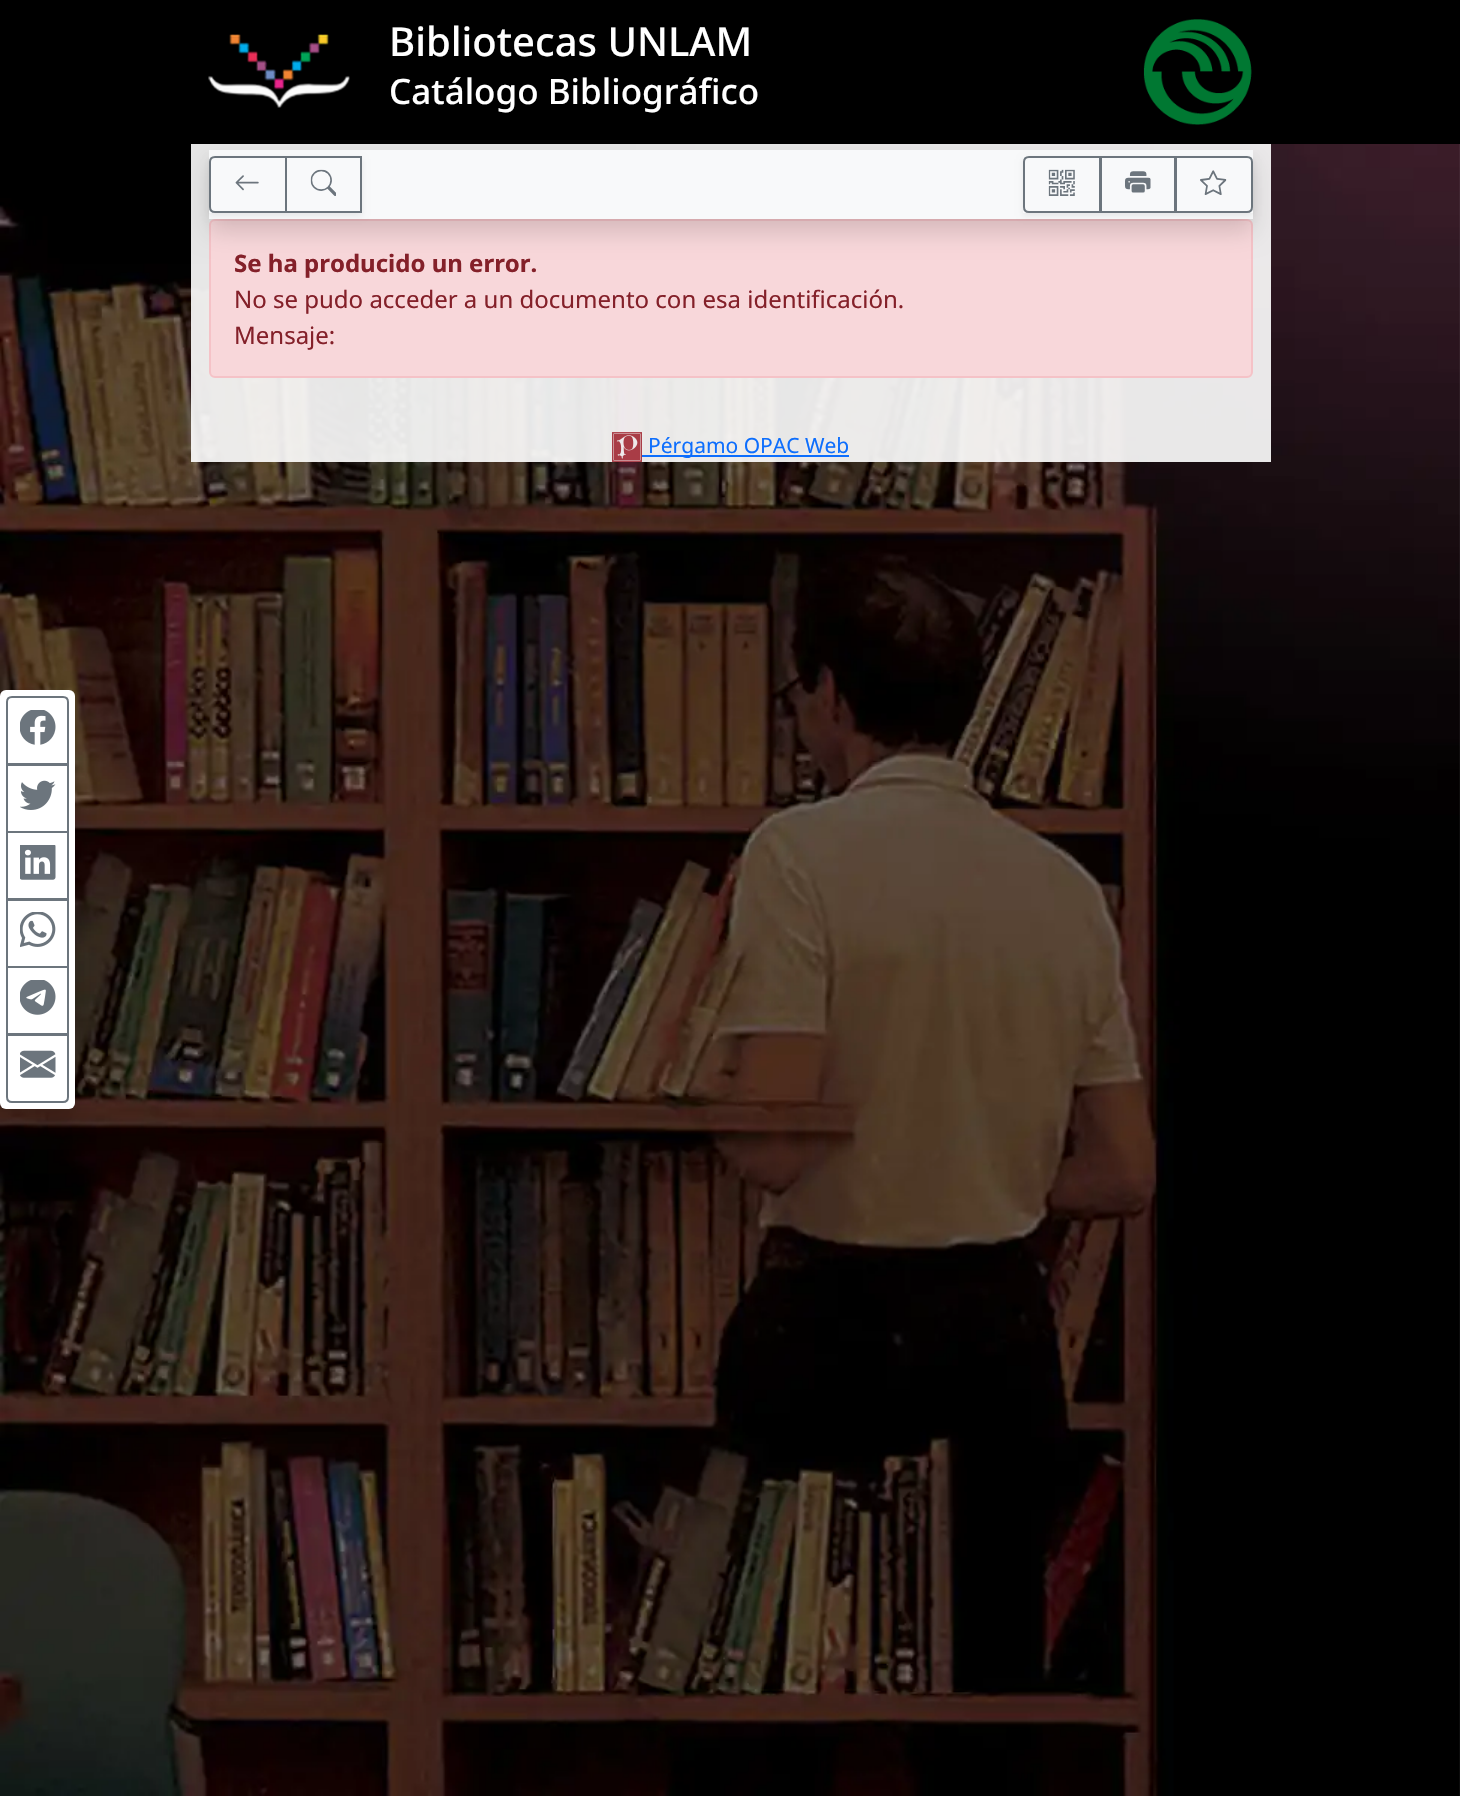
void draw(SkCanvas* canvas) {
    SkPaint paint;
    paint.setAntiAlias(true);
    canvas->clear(0xFFFFFFFF);
    canvas->drawImageRect(SkImages::DeferredFromEncodedData(SkData::MakeFromFileName("img1.png")), SkRect::MakeXYWH(0, 144, 1460, 1652), SkSamplingOptions());
    paint.setColor(0xFF000000);
    canvas->drawRect(SkRect::MakeXYWH(0, 0, 1460, 144), paint);
    canvas->drawImageRect(SkImages::DeferredFromEncodedData(SkData::MakeFromFileName("img2.png")), SkRect::MakeXYWH(208, 34, 142, 74), SkSamplingOptions());
    SkFont font1(fontMgr->matchFamilyStyle("Noto Sans", SkFontStyle(500, SkFontStyle::kNormal_Width, SkFontStyle::kUpright_Slant)), 40);
    font1.setSubpixel(true);
    paint.setColor(0xFFFFFFFF);
    canvas->drawString("Bibliotecas UNLAM", 389, 56, font1, paint);
    SkFont font2(fontMgr->matchFamilyStyle("Noto Sans", SkFontStyle(500, SkFontStyle::kNormal_Width, SkFontStyle::kUpright_Slant)), 35);
    font2.setSubpixel(true);
    canvas->drawString("Catálogo Bibliográfico", 389, 104, font2, paint);
    canvas->drawImageRect(SkImages::DeferredFromEncodedData(SkData::MakeFromFileName("img3.png")), SkRect::MakeXYWH(1143, 19, 109, 106), SkSamplingOptions());
    paint.setColor(0xE6FFFFFF);
    canvas->drawRect(SkRect::MakeXYWH(191, 144, 1080, 318), paint);
    paint.setColor(0xFFF8D7DA);
    canvas->drawRoundRect(SkRect::MakeXYWH(210, 220, 1042, 157), 5, 5, paint);
    paint.setStyle(SkPaint::kStroke_Style);
    paint.setStrokeWidth(2);
    paint.setColor(0xFFF5C2C7);
    canvas->drawRoundRect(SkRect::MakeXYWH(210, 220, 1042, 157), 5, 5, paint);
    paint.setStyle(SkPaint::kFill_Style);
    paint.setColor(0x26000000);
    paint.setMaskFilter(SkMaskFilter::MakeBlur(kNormal_SkBlurStyle, 12));
    canvas->drawRect(SkRect::MakeXYWH(209, 162, 1044, 69), paint);
    paint.setMaskFilter(nullptr);
    paint.setColor(0xFFF8F9FA);
    canvas->drawRect(SkRect::MakeXYWH(209, 150, 1044, 69), paint);
    canvas->save();
    canvas->clipPath(SkPathBuilder(SkPathFillType::kEvenOdd).moveTo(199, 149).lineTo(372, 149).lineTo(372, 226).lineTo(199, 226).close().moveTo(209, 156).lineTo(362, 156).lineTo(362, 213).lineTo(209, 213).close().detach(), true);
    paint.setColor(0x12000000);
    paint.setMaskFilter(SkMaskFilter::MakeBlur(kNormal_SkBlurStyle, 3));
    canvas->drawRect(SkRect::MakeXYWH(209, 159, 153, 57), paint);
    paint.setMaskFilter(nullptr);
    canvas->restore();
    paint.setStyle(SkPaint::kStroke_Style);
    paint.setColor(0xFF6C757D);
    canvas->drawPath(SkPathBuilder().moveTo(215, 157).lineTo(286, 157).lineTo(286, 212).lineTo(215, 212).cubicTo(212, 212, 210, 210, 210, 207).lineTo(210, 162).cubicTo(210, 159, 212, 157, 215, 157).close().detach(), paint);
    canvas->drawImageRect(SkImages::DeferredFromEncodedData(SkData::MakeFromFileName("img4.png")), SkRect::MakeXYWH(235, 175, 24, 16), SkSamplingOptions());
    canvas->drawRect(SkRect::MakeXYWH(286, 157, 75, 55), paint);
    canvas->drawImageRect(SkImages::DeferredFromEncodedData(SkData::MakeFromFileName("img5.png")), SkRect::MakeXYWH(310, 169, 26, 27), SkSamplingOptions());
    canvas->save();
    canvas->clipPath(SkPathBuilder(SkPathFillType::kEvenOdd).moveTo(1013, 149).lineTo(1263, 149).lineTo(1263, 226).lineTo(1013, 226).close().moveTo(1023, 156).lineTo(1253, 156).lineTo(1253, 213).lineTo(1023, 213).close().detach(), true);
    paint.setStyle(SkPaint::kFill_Style);
    paint.setColor(0x12000000);
    paint.setMaskFilter(SkMaskFilter::MakeBlur(kNormal_SkBlurStyle, 3));
    canvas->drawRect(SkRect::MakeXYWH(1023, 159, 230, 57), paint);
    paint.setMaskFilter(nullptr);
    canvas->restore();
    paint.setStyle(SkPaint::kStroke_Style);
    paint.setColor(0xFF6C757D);
    canvas->drawPath(SkPathBuilder().moveTo(1029, 157).lineTo(1100, 157).lineTo(1100, 212).lineTo(1029, 212).cubicTo(1026, 212, 1024, 210, 1024, 207).lineTo(1024, 162).cubicTo(1024, 159, 1026, 157, 1029, 157).close().detach(), paint);
    canvas->drawImageRect(SkImages::DeferredFromEncodedData(SkData::MakeFromFileName("img6.png")), SkRect::MakeXYWH(1048, 169, 27, 27), SkSamplingOptions());
    canvas->drawRect(SkRect::MakeXYWH(1101, 157, 74, 55), paint);
    canvas->drawImageRect(SkImages::DeferredFromEncodedData(SkData::MakeFromFileName("img7.png")), SkRect::MakeXYWH(1125, 171, 26, 22), SkSamplingOptions());
    canvas->drawPath(SkPathBuilder().moveTo(1176, 157).lineTo(1247, 157).cubicTo(1250, 157, 1252, 159, 1252, 162).lineTo(1252, 207).cubicTo(1252, 210, 1250, 212, 1247, 212).lineTo(1176, 212).close().detach(), paint);
    canvas->drawImageRect(SkImages::DeferredFromEncodedData(SkData::MakeFromFileName("img8.png")), SkRect::MakeXYWH(1200, 170, 27, 25), SkSamplingOptions());
    SkFont font3(fontMgr->matchFamilyStyle("Noto Sans", SkFontStyle::Bold()), 24);
    font3.setSubpixel(true);
    paint.setStyle(SkPaint::kFill_Style);
    paint.setColor(0xFF842029);
    canvas->drawString("Se ha producido un error.", 234, 272, font3, paint);
    SkFont font4(fontMgr->matchFamilyStyle("Noto Sans", SkFontStyle::Normal()), 24);
    font4.setSubpixel(true);
    canvas->drawString("No se pudo acceder a un documento con esa identificación.", 234, 308, font4, paint);
    canvas->drawString("Mensaje:", 234, 344, font4, paint);
    canvas->drawImageRect(SkImages::DeferredFromEncodedData(SkData::MakeFromFileName("img9.png")), SkRect::MakeXYWH(612, 432, 30, 30), SkSamplingOptions());
    paint.setColor(0xFF0D6EFD);
    canvas->drawRect(SkRect::MakeXYWH(642, 455, 207, 2), paint);
    SkFont font5(fontMgr->matchFamilyStyle("Noto Sans", SkFontStyle::Normal()), 21);
    font5.setSubpixel(true);
    canvas->drawString("Pérgamo OPAC Web", 648, 453, font5, paint);
    paint.setColor(0x26000000);
    paint.setMaskFilter(SkMaskFilter::MakeBlur(kNormal_SkBlurStyle, 12));
    canvas->drawRoundRect(SkRect::MakeXYWH(0, 702, 75, 419), 6, 6, paint);
    paint.setMaskFilter(nullptr);
    paint.setColor(0xFFFFFFFF);
    canvas->drawRoundRect(SkRect::MakeXYWH(0, 690, 75, 419), 6, 6, paint);
    paint.setStyle(SkPaint::kStroke_Style);
    paint.setColor(0xFF6C757D);
    canvas->drawPath(SkPathBuilder().moveTo(12, 697).lineTo(63, 697).cubicTo(66, 697, 68, 699, 68, 702).lineTo(68, 764).lineTo(7, 764).lineTo(7, 702).cubicTo(7, 699, 9, 697, 12, 697).close().detach(), paint);
    canvas->drawImageRect(SkImages::DeferredFromEncodedData(SkData::MakeFromFileName("img10.png")), SkRect::MakeXYWH(20, 710, 36, 35), SkSamplingOptions());
    canvas->drawRect(SkRect::MakeXYWH(7, 765, 61, 67), paint);
    canvas->drawImageRect(SkImages::DeferredFromEncodedData(SkData::MakeFromFileName("img11.png")), SkRect::MakeXYWH(20, 780, 36, 30), SkSamplingOptions());
    canvas->drawRect(SkRect::MakeXYWH(7, 832, 61, 67), paint);
    canvas->drawImageRect(SkImages::DeferredFromEncodedData(SkData::MakeFromFileName("img12.png")), SkRect::MakeXYWH(20, 845, 36, 35), SkSamplingOptions());
    canvas->drawRect(SkRect::MakeXYWH(7, 900, 61, 67), paint);
    canvas->drawImageRect(SkImages::DeferredFromEncodedData(SkData::MakeFromFileName("img13.png")), SkRect::MakeXYWH(20, 912, 36, 36), SkSamplingOptions());
    canvas->drawRect(SkRect::MakeXYWH(7, 967, 61, 67), paint);
    canvas->drawImageRect(SkImages::DeferredFromEncodedData(SkData::MakeFromFileName("img14.png")), SkRect::MakeXYWH(20, 980, 36, 35), SkSamplingOptions());
    canvas->drawPath(SkPathBuilder().moveTo(7, 1035).lineTo(68, 1035).lineTo(68, 1097).cubicTo(68, 1100, 66, 1102, 63, 1102).lineTo(12, 1102).cubicTo(9, 1102, 7, 1100, 7, 1097).close().detach(), paint);
    canvas->drawImageRect(SkImages::DeferredFromEncodedData(SkData::MakeFromFileName("img15.png")), SkRect::MakeXYWH(20, 1050, 36, 28), SkSamplingOptions());
}
